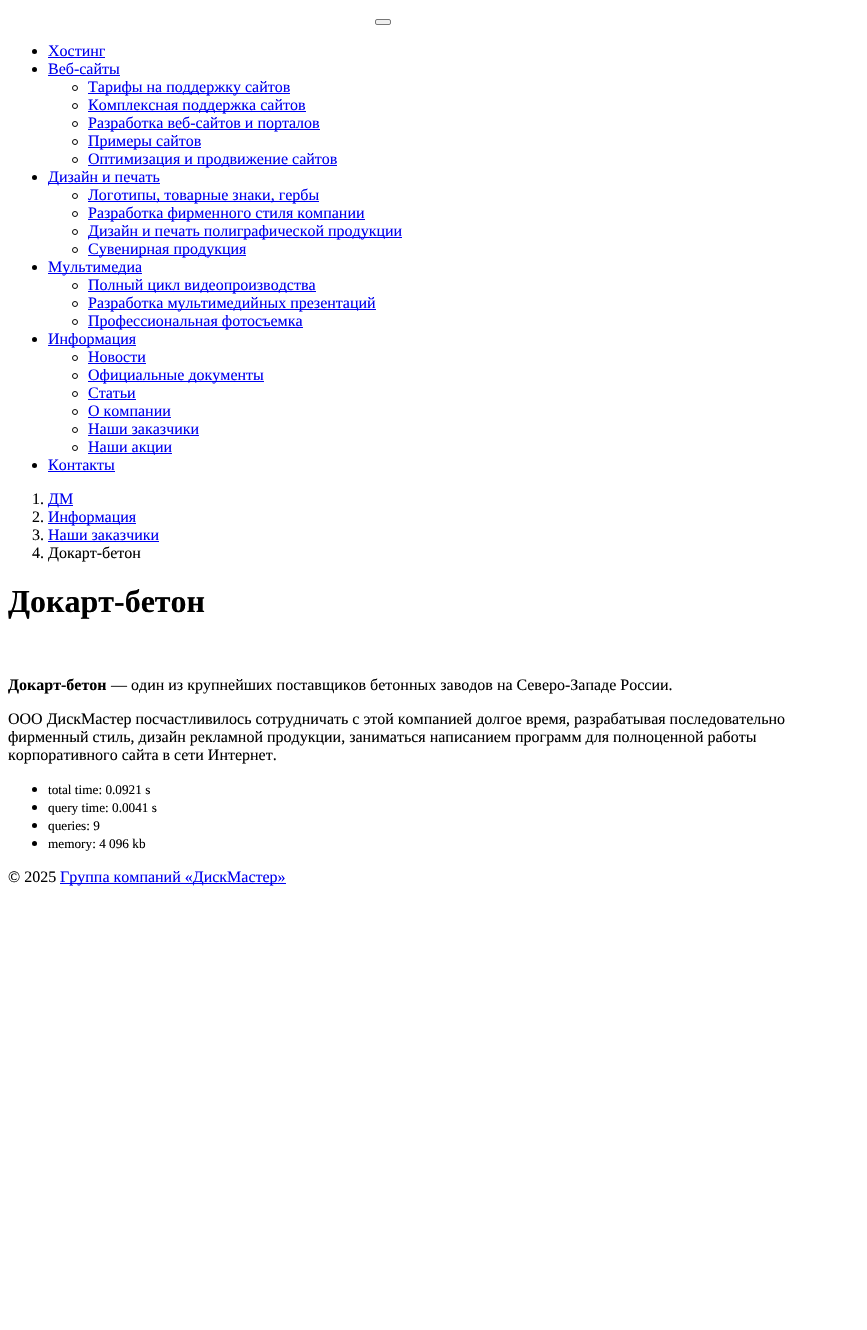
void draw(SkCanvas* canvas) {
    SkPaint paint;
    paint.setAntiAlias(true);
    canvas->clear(0xFFFFFFFF);
    paint.setColor(0xFFEFEFEF);
    canvas->drawRoundRect(SkRect::MakeXYWH(375.5f, 19.5f, 15, 5), 1.5f, 1.5f, paint);
    paint.setStyle(SkPaint::kStroke_Style);
    paint.setStrokeWidth(1);
    paint.setColor(0xFF767676);
    canvas->drawRoundRect(SkRect::MakeXYWH(375.5f, 19.5f, 15, 5), 1.5f, 1.5f, paint);
    paint.setStyle(SkPaint::kFill_Style);
    paint.setColor(0xFF000000);
    canvas->drawCircle(34.5f, 51.5f, 2.5f, paint);
    SkFont font1(fontMgr->matchFamilyStyle("Liberation Serif", SkFontStyle::Normal()), 16);
    font1.setSubpixel(true);
    paint.setColor(0xFF0000EE);
    canvas->drawString("Хостинг", 48, 56, font1, paint);
    canvas->drawRect(SkRect::MakeXYWH(48, 57, 57, 1), paint);
    paint.setColor(0xFF000000);
    canvas->drawCircle(34.5f, 69.5f, 2.5f, paint);
    paint.setColor(0xFF0000EE);
    canvas->drawString("Веб-сайты", 48, 74, font1, paint);
    canvas->drawRect(SkRect::MakeXYWH(48, 75, 72, 1), paint);
    paint.setStyle(SkPaint::kStroke_Style);
    paint.setColor(0xFF000000);
    canvas->drawCircle(75, 88, 2.5f, paint);
    paint.setStyle(SkPaint::kFill_Style);
    paint.setColor(0xFF0000EE);
    canvas->drawRect(SkRect::MakeXYWH(88, 93, 202, 1), paint);
    canvas->drawString("Тарифы на поддержку сайтов", 88, 92, font1, paint);
    paint.setStyle(SkPaint::kStroke_Style);
    paint.setColor(0xFF000000);
    canvas->drawCircle(75, 106, 2.5f, paint);
    paint.setStyle(SkPaint::kFill_Style);
    paint.setColor(0xFF0000EE);
    canvas->drawRect(SkRect::MakeXYWH(88, 111, 218, 1), paint);
    canvas->drawString("Комплексная поддержка сайтов", 88, 110, font1, paint);
    paint.setStyle(SkPaint::kStroke_Style);
    paint.setColor(0xFF000000);
    canvas->drawCircle(75, 124, 2.5f, paint);
    paint.setStyle(SkPaint::kFill_Style);
    paint.setColor(0xFF0000EE);
    canvas->drawRect(SkRect::MakeXYWH(88, 129, 232, 1), paint);
    canvas->drawString("Разработка веб-сайтов и порталов", 88, 128, font1, paint);
    paint.setStyle(SkPaint::kStroke_Style);
    paint.setColor(0xFF000000);
    canvas->drawCircle(75, 142, 2.5f, paint);
    paint.setStyle(SkPaint::kFill_Style);
    paint.setColor(0xFF0000EE);
    canvas->drawRect(SkRect::MakeXYWH(88, 147, 113, 1), paint);
    canvas->drawString("Примеры сайтов", 88, 146, font1, paint);
    paint.setStyle(SkPaint::kStroke_Style);
    paint.setColor(0xFF000000);
    canvas->drawCircle(75, 160, 2.5f, paint);
    paint.setStyle(SkPaint::kFill_Style);
    paint.setColor(0xFF0000EE);
    canvas->drawRect(SkRect::MakeXYWH(88, 165, 249, 1), paint);
    canvas->drawString("Оптимизация и продвижение сайтов", 88, 164, font1, paint);
    paint.setColor(0xFF000000);
    canvas->drawCircle(34.5f, 177.5f, 2.5f, paint);
    paint.setColor(0xFF0000EE);
    canvas->drawRect(SkRect::MakeXYWH(48, 183, 112, 1), paint);
    canvas->drawString("Дизайн и печать", 48, 182, font1, paint);
    paint.setStyle(SkPaint::kStroke_Style);
    paint.setColor(0xFF000000);
    canvas->drawCircle(75, 196, 2.5f, paint);
    paint.setStyle(SkPaint::kFill_Style);
    paint.setColor(0xFF0000EE);
    canvas->drawRect(SkRect::MakeXYWH(88, 201, 231, 1), paint);
    canvas->drawString("Логотипы, товарные знаки, гербы", 88, 200, font1, paint);
    paint.setStyle(SkPaint::kStroke_Style);
    paint.setColor(0xFF000000);
    canvas->drawCircle(75, 214, 2.5f, paint);
    paint.setStyle(SkPaint::kFill_Style);
    paint.setColor(0xFF0000EE);
    canvas->drawRect(SkRect::MakeXYWH(88, 219, 277, 1), paint);
    canvas->drawString("Разработка фирменного стиля компании", 88, 218, font1, paint);
    paint.setStyle(SkPaint::kStroke_Style);
    paint.setColor(0xFF000000);
    canvas->drawCircle(75, 232, 2.5f, paint);
    paint.setStyle(SkPaint::kFill_Style);
    paint.setColor(0xFF0000EE);
    canvas->drawRect(SkRect::MakeXYWH(88, 237, 314, 1), paint);
    canvas->drawString("Дизайн и печать полиграфической продукции", 88, 236, font1, paint);
    paint.setStyle(SkPaint::kStroke_Style);
    paint.setColor(0xFF000000);
    canvas->drawCircle(75, 250, 2.5f, paint);
    paint.setStyle(SkPaint::kFill_Style);
    paint.setColor(0xFF0000EE);
    canvas->drawRect(SkRect::MakeXYWH(88, 255, 158, 1), paint);
    canvas->drawString("Сувенирная продукция", 88, 254, font1, paint);
    paint.setColor(0xFF000000);
    canvas->drawCircle(34.5f, 267.5f, 2.5f, paint);
    paint.setColor(0xFF0000EE);
    canvas->drawRect(SkRect::MakeXYWH(48, 273, 94, 1), paint);
    canvas->drawString("Мультимедиа", 48, 272, font1, paint);
    paint.setStyle(SkPaint::kStroke_Style);
    paint.setColor(0xFF000000);
    canvas->drawCircle(75, 286, 2.5f, paint);
    paint.setStyle(SkPaint::kFill_Style);
    paint.setColor(0xFF0000EE);
    canvas->drawRect(SkRect::MakeXYWH(88, 291, 228, 1), paint);
    canvas->drawString("Полный цикл видеопроизводства", 88, 290, font1, paint);
    paint.setStyle(SkPaint::kStroke_Style);
    paint.setColor(0xFF000000);
    canvas->drawCircle(75, 304, 2.5f, paint);
    paint.setStyle(SkPaint::kFill_Style);
    paint.setColor(0xFF0000EE);
    canvas->drawRect(SkRect::MakeXYWH(88, 309, 288, 1), paint);
    canvas->drawString("Разработка мультимедийных презентаций", 88, 308, font1, paint);
    paint.setStyle(SkPaint::kStroke_Style);
    paint.setColor(0xFF000000);
    canvas->drawCircle(75, 322, 2.5f, paint);
    paint.setStyle(SkPaint::kFill_Style);
    paint.setColor(0xFF0000EE);
    canvas->drawRect(SkRect::MakeXYWH(88, 327, 215, 1), paint);
    canvas->drawString("Профессиональная фотосъемка", 88, 326, font1, paint);
    paint.setColor(0xFF000000);
    canvas->drawCircle(34.5f, 339.5f, 2.5f, paint);
    paint.setColor(0xFF0000EE);
    canvas->drawRect(SkRect::MakeXYWH(48, 345, 88, 1), paint);
    canvas->drawString("Информация", 48, 344, font1, paint);
    paint.setStyle(SkPaint::kStroke_Style);
    paint.setColor(0xFF000000);
    canvas->drawCircle(75, 358, 2.5f, paint);
    paint.setStyle(SkPaint::kFill_Style);
    paint.setColor(0xFF0000EE);
    canvas->drawString("Новости", 88, 362, font1, paint);
    canvas->drawRect(SkRect::MakeXYWH(88, 363, 58, 1), paint);
    paint.setStyle(SkPaint::kStroke_Style);
    paint.setColor(0xFF000000);
    canvas->drawCircle(75, 376, 2.5f, paint);
    paint.setStyle(SkPaint::kFill_Style);
    paint.setColor(0xFF0000EE);
    canvas->drawRect(SkRect::MakeXYWH(88, 381, 176, 1), paint);
    canvas->drawString("Официальные документы", 88, 380, font1, paint);
    paint.setStyle(SkPaint::kStroke_Style);
    paint.setColor(0xFF000000);
    canvas->drawCircle(75, 394, 2.5f, paint);
    paint.setStyle(SkPaint::kFill_Style);
    paint.setColor(0xFF0000EE);
    canvas->drawString("Статьи", 88, 398, font1, paint);
    canvas->drawRect(SkRect::MakeXYWH(88, 399, 48, 1), paint);
    paint.setStyle(SkPaint::kStroke_Style);
    paint.setColor(0xFF000000);
    canvas->drawCircle(75, 412, 2.5f, paint);
    paint.setStyle(SkPaint::kFill_Style);
    paint.setColor(0xFF0000EE);
    canvas->drawString("О компании", 88, 416, font1, paint);
    canvas->drawRect(SkRect::MakeXYWH(88, 417, 83, 1), paint);
    paint.setStyle(SkPaint::kStroke_Style);
    paint.setColor(0xFF000000);
    canvas->drawCircle(75, 430, 2.5f, paint);
    paint.setStyle(SkPaint::kFill_Style);
    paint.setColor(0xFF0000EE);
    canvas->drawString("Наши заказчики", 88, 434, font1, paint);
    canvas->drawRect(SkRect::MakeXYWH(88, 435, 111, 1), paint);
    paint.setStyle(SkPaint::kStroke_Style);
    paint.setColor(0xFF000000);
    canvas->drawCircle(75, 448, 2.5f, paint);
    paint.setStyle(SkPaint::kFill_Style);
    paint.setColor(0xFF0000EE);
    canvas->drawRect(SkRect::MakeXYWH(88, 453, 84, 1), paint);
    canvas->drawString("Наши акции", 88, 452, font1, paint);
    paint.setColor(0xFF000000);
    canvas->drawCircle(34.5f, 465.5f, 2.5f, paint);
    paint.setColor(0xFF0000EE);
    canvas->drawString("Контакты", 48, 470, font1, paint);
    canvas->drawRect(SkRect::MakeXYWH(48, 471, 67, 1), paint);
    paint.setColor(0xFF000000);
    canvas->drawString("1.", 32, 504, font1, paint);
    paint.setColor(0xFF0000EE);
    canvas->drawRect(SkRect::MakeXYWH(48, 505, 25, 1), paint);
    canvas->drawString("ДМ", 48, 504, font1, paint);
    paint.setColor(0xFF000000);
    canvas->drawString("2.", 32, 522, font1, paint);
    paint.setColor(0xFF0000EE);
    canvas->drawRect(SkRect::MakeXYWH(48, 523, 88, 1), paint);
    canvas->drawString("Информация", 48, 522, font1, paint);
    paint.setColor(0xFF000000);
    canvas->drawString("3.", 32, 540, font1, paint);
    paint.setColor(0xFF0000EE);
    canvas->drawString("Наши заказчики", 48, 540, font1, paint);
    canvas->drawRect(SkRect::MakeXYWH(48, 541, 111, 1), paint);
    paint.setColor(0xFF000000);
    canvas->drawString("4. Докарт-бетон", 32, 558, font1, paint);
    SkFont font2(fontMgr->matchFamilyStyle("Liberation Serif", SkFontStyle::Bold()), 32);
    font2.setSubpixel(true);
    canvas->drawString("Докарт-бетон", 8, 612, font2, paint);
    SkFont font3(fontMgr->matchFamilyStyle("Liberation Serif", SkFontStyle::Bold()), 16);
    font3.setSubpixel(true);
    canvas->drawString("Докарт-бетон", 8, 690, font3, paint);
    canvas->drawString("— один из крупнейших поставщиков бетонных заводов на Северо-Западе России.", 111, 690, font1, paint);
    canvas->drawString("ООО ДискМастер посчастливилось сотрудничать с этой компанией долгое время, разрабатывая последовательно", 8, 724, font1, paint);
    canvas->drawString("фирменный стиль, дизайн рекламной продукции, заниматься написанием программ для полноценной работы", 8, 742, font1, paint);
    canvas->drawString("корпоративного сайта в сети Интернет.", 8, 760, font1, paint);
    canvas->drawCircle(34.5f, 789.5f, 2.5f, paint);
    SkFont font4(fontMgr->matchFamilyStyle("Liberation Serif", SkFontStyle::Normal()), 13.25f);
    font4.setSubpixel(true);
    canvas->drawString("total time: 0.0921 s", 48, 794, font4, paint);
    canvas->drawCircle(34.5f, 807.5f, 2.5f, paint);
    canvas->drawString("query time: 0.0041 s", 48, 812, font4, paint);
    canvas->drawCircle(34.5f, 825.5f, 2.5f, paint);
    canvas->drawString("queries: 9", 48, 830, font4, paint);
    canvas->drawCircle(34.5f, 843.5f, 2.5f, paint);
    canvas->drawString("memory: 4 096 kb", 48, 848, font4, paint);
    canvas->drawString("© 2025", 8, 882, font1, paint);
    paint.setColor(0xFF0000EE);
    canvas->drawRect(SkRect::MakeXYWH(60, 883, 226, 1), paint);
    canvas->drawString("Группа компаний «ДискМастер»", 60, 882, font1, paint);
}
